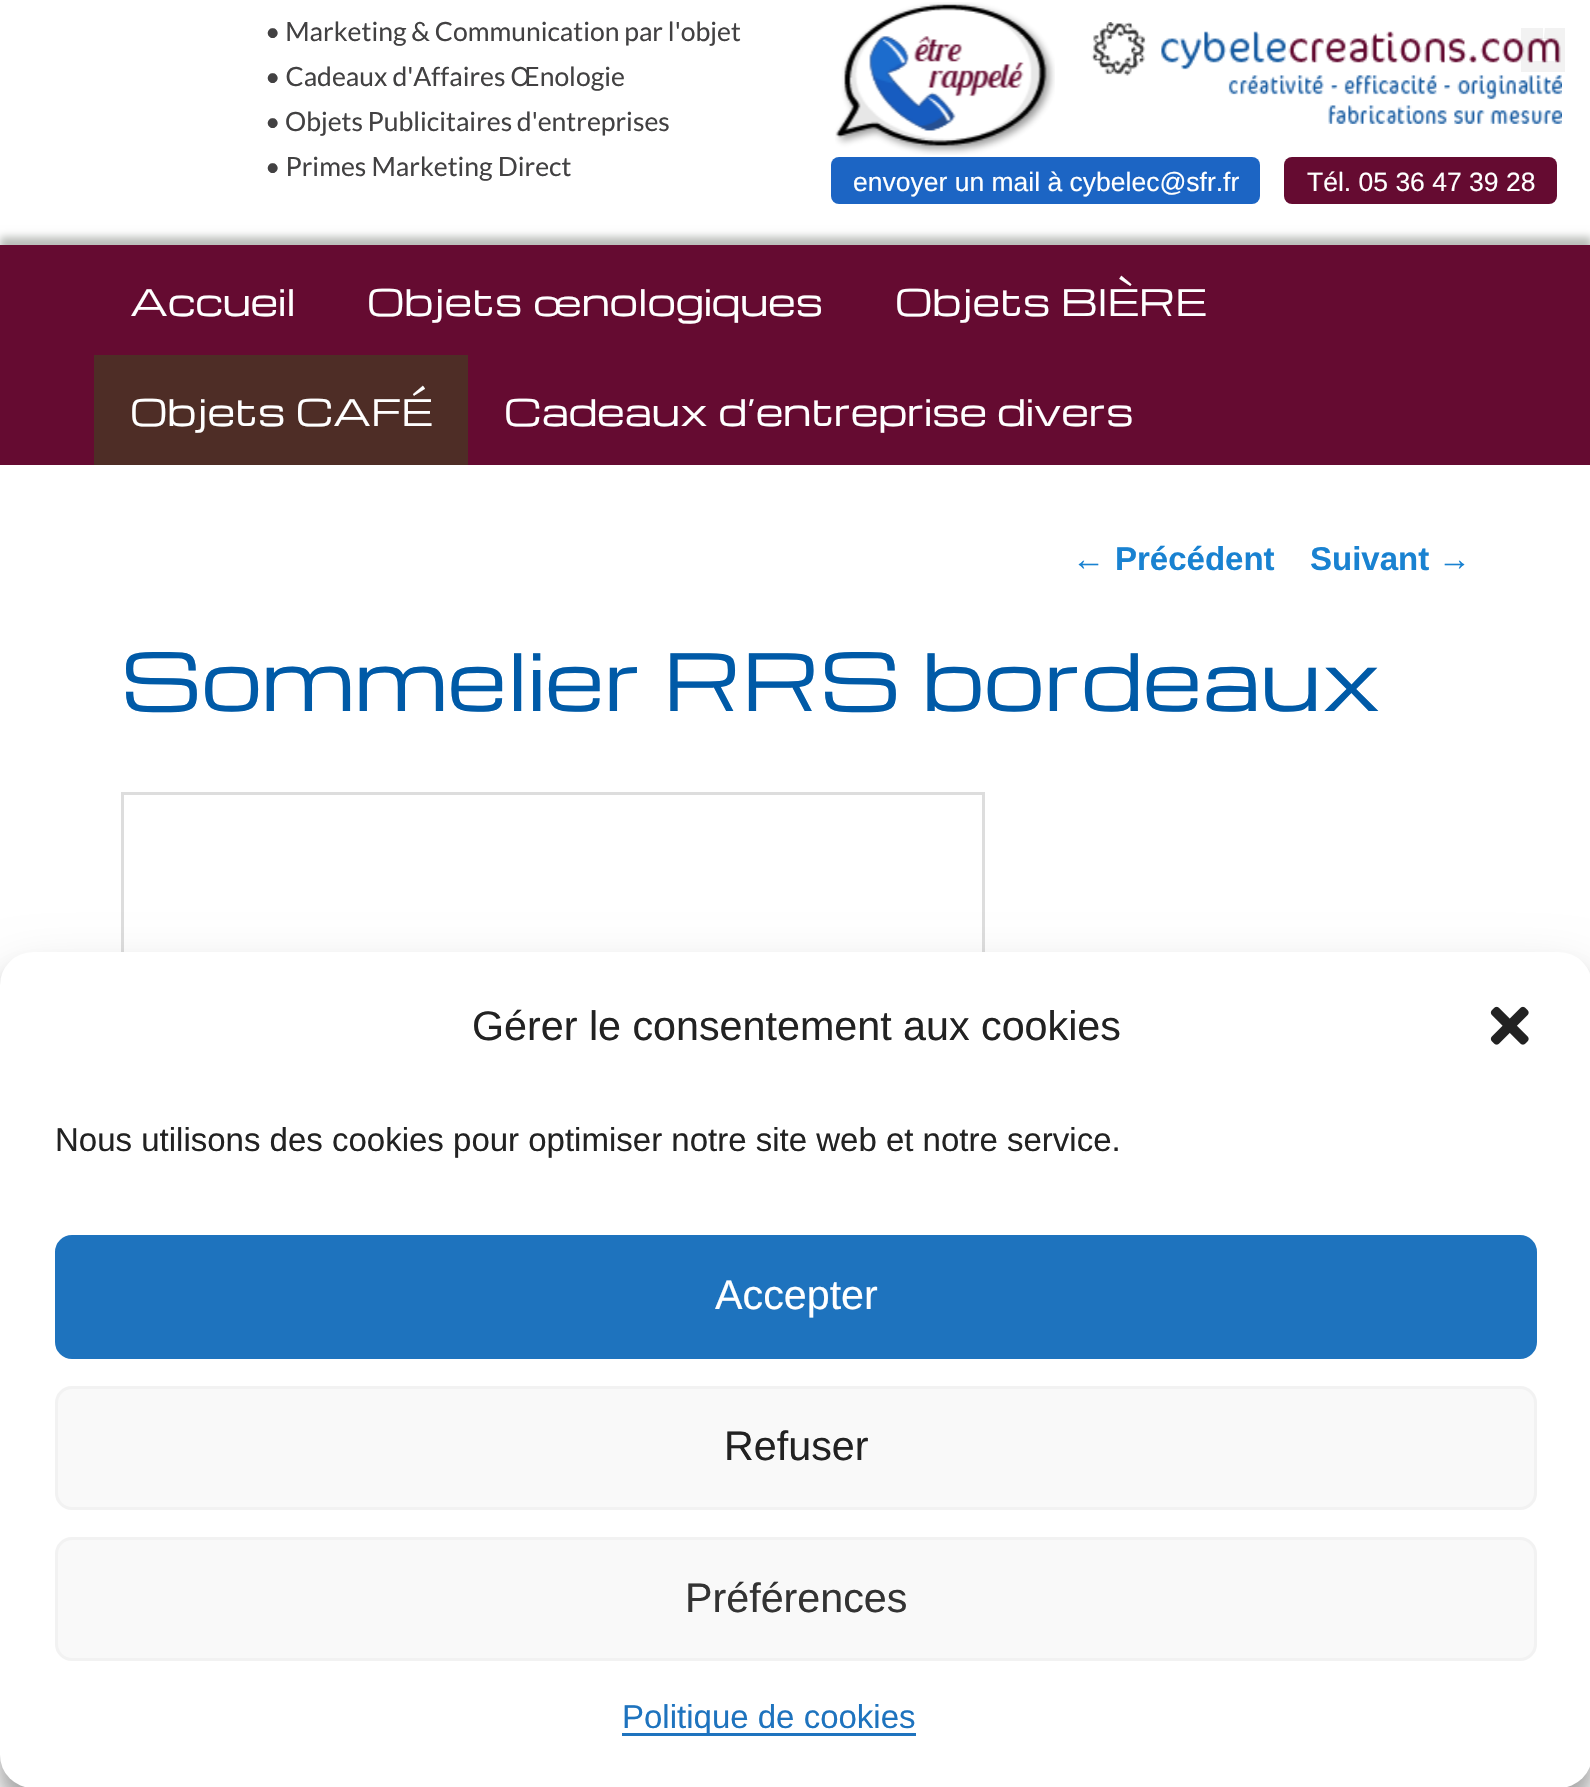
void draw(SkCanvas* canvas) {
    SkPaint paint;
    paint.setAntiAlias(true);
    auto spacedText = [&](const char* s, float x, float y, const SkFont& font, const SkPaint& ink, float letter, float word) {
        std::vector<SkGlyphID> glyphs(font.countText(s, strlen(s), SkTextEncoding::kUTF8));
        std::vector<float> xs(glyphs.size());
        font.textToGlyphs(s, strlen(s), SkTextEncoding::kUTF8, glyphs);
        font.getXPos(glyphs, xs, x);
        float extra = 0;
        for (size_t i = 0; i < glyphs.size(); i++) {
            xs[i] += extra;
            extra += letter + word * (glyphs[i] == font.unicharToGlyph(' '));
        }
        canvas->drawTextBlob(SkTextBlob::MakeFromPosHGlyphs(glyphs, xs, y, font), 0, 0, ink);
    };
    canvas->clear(0xFFFFFFFF);
    SkFont font1(fontMgr->matchFamilyStyle("Lato", SkFontStyle::Normal()), 26.5f);
    font1.setSubpixel(true);
    paint.setColor(0xFF424142);
    spacedText("• Marketing & Communication par l'objet", 265, 41, font1, paint, 0, -0.25f);
    canvas->drawString("• Cadeaux d'Affaires Œnologie", 265, 86, font1, paint);
    spacedText("• Objets Publicitaires d'entreprises", 265, 131, font1, paint, 0, -0.5f);
    canvas->drawString("• Primes Marketing Direct", 265, 176, font1, paint);
    canvas->drawImageRect(SkImages::DeferredFromEncodedData(SkData::MakeFromFileName("img1.png")), SkRect::MakeXYWH(835, 2, 220, 153), SkSamplingOptions());
    canvas->drawImageRect(SkImages::DeferredFromEncodedData(SkData::MakeFromFileName("img2.png")), SkRect::MakeXYWH(1091, 22, 471, 102), SkSamplingOptions());
    paint.setColor(0xFF1C65C4);
    canvas->drawRoundRect(SkRect::MakeXYWH(831, 157, 429, 47), 8, 8, paint);
    SkFont font2(fontMgr->matchFamilyStyle("Liberation Sans", SkFontStyle::Normal()), 26.5f);
    font2.setSubpixel(true);
    paint.setColor(0xFFFFFFFF);
    canvas->drawString("envoyer un mail à cybelec@sfr.fr", 853, 191, font2, paint);
    paint.setColor(0xFF650B31);
    canvas->drawRoundRect(SkRect::MakeXYWH(1284, 157, 273, 47), 8, 8, paint);
    paint.setColor(0xFFFFFFFF);
    canvas->drawString("Tél. 05 36 47 39 28", 1307, 191, font2, paint);
    paint.setStyle(SkPaint::kStroke_Style);
    paint.setStrokeWidth(11);
    paint.setColor(0x0D000000);
    canvas->drawRect(SkRect::MakeXYWH(1526.5f, 33.5f, 33, 33), paint);
    canvas->save();
    canvas->clipRect(SkRect::MakeXYWH(1543, 28, 22, 44));
    canvas->clipPath(SkPathBuilder().moveTo(1523, 25.5f).lineTo(1545, 27.5f).lineTo(1540.5f, 71.5f).lineTo(1518.5f, 69).close().detach(), true);
    paint.setColor(0xFFFFFFFF);
    canvas->drawPath(SkPathBuilder().moveTo(1544.5f, 33).cubicTo(1553.5f, 34, 1560, 42, 1559, 51.5f).cubicTo(1558, 60.5f, 1550, 67, 1541, 66).cubicTo(1532, 65, 1525.5f, 57, 1526.5f, 47.5f).cubicTo(1527.5f, 38.5f, 1535.5f, 32, 1544.5f, 33).close().detach(), paint);
    canvas->restore();
    paint.setStyle(SkPaint::kFill_Style);
    paint.setColor(0xFFBABDB9);
    paint.setMaskFilter(SkMaskFilter::MakeBlur(kNormal_SkBlurStyle, 4));
    canvas->drawRect(SkRect::MakeXYWH(0, 237, 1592, 123), paint);
    paint.setMaskFilter(nullptr);
    paint.setColor(0xFF650B31);
    canvas->drawRect(SkRect::MakeXYWH(0, 245, 1590, 220), paint);
    SkFont font3(fontMgr->matchFamilyStyle("Michroma", SkFontStyle::Normal()), 35.75f);
    font3.setSubpixel(true);
    paint.setColor(0xFFFFFFFF);
    canvas->drawString("Accueil", 130, 316, font3, paint);
    canvas->drawString("Objets œnologiques", 367, 316, font3, paint);
    canvas->drawString("Objets BIÈRE", 895, 316, font3, paint);
    paint.setColor(0xFF4E2D26);
    canvas->drawRect(SkRect::MakeXYWH(94, 355, 374, 110), paint);
    paint.setColor(0xFFFFFFFF);
    canvas->drawString("Objets CAFÉ", 130, 426, font3, paint);
    canvas->drawString("Cadeaux d’entreprise divers", 504, 426, font3, paint);
    SkFont font4(fontMgr->matchFamilyStyle("Liberation Sans", SkFontStyle::Normal()), 33);
    font4.setSubpixel(true);
    paint.setColor(0xFF1982D1);
    canvas->drawString("←", 1072, 570, font4, paint);
    SkFont font5(fontMgr->matchFamilyStyle("Liberation Sans", SkFontStyle::Bold()), 33);
    font5.setSubpixel(true);
    canvas->drawString("Précédent", 1115, 570, font5, paint);
    canvas->drawString("Suivant", 1310, 570, font5, paint);
    canvas->drawString("→", 1438, 570, font4, paint);
    SkFont font6(fontMgr->matchFamilyStyle("Michroma", SkFontStyle::Normal()), 77);
    font6.setSubpixel(true);
    paint.setColor(0xFF005AA7);
    canvas->drawString("Sommelier RRS bordeaux", 121, 711, font6, paint);
    paint.setStyle(SkPaint::kStroke_Style);
    paint.setStrokeWidth(3);
    paint.setColor(0xFFDDDDDD);
    canvas->drawRect(SkRect::MakeXYWH(122.5f, 793.5f, 861, 652), paint);
    paint.setStyle(SkPaint::kFill_Style);
    paint.setColor(0x3B000000);
    paint.setMaskFilter(SkMaskFilter::MakeBlur(kNormal_SkBlurStyle, 8));
    canvas->drawRoundRect(SkRect::MakeXYWH(0, 968, 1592, 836), 33, 33, paint);
    paint.setMaskFilter(nullptr);
    paint.setColor(0x30000000);
    paint.setMaskFilter(SkMaskFilter::MakeBlur(kNormal_SkBlurStyle, 27.5f));
    canvas->drawRoundRect(SkRect::MakeXYWH(0, 979, 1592, 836), 33, 33, paint);
    paint.setMaskFilter(nullptr);
    paint.setColor(0xFFFFFFFF);
    canvas->drawRoundRect(SkRect::MakeXYWH(0, 952, 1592, 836), 33, 33, paint);
    SkFont font7(fontMgr->matchFamilyStyle("Liberation Sans", SkFontStyle::Normal()), 41.25f);
    font7.setSubpixel(true);
    paint.setColor(0xFF222222);
    canvas->drawString("Gérer le consentement aux cookies", 472, 1040, font7, paint);
    canvas->drawImageRect(SkImages::DeferredFromEncodedData(SkData::MakeFromFileName("img3.png")), SkRect::MakeXYWH(1490, 1006, 39, 39), SkSamplingOptions());
    canvas->drawString("Nous utilisons des cookies pour optimiser notre site web et notre service.", 55, 1151, font4, paint);
    paint.setColor(0xFF1E73BE);
    canvas->drawRoundRect(SkRect::MakeXYWH(56.5f, 1236.5f, 1479, 121), 15.5f, 15.5f, paint);
    paint.setStyle(SkPaint::kStroke_Style);
    canvas->drawRoundRect(SkRect::MakeXYWH(56.5f, 1236.5f, 1479, 121), 15.5f, 15.5f, paint);
    paint.setStyle(SkPaint::kFill_Style);
    paint.setColor(0xFFFFFFFF);
    canvas->drawString("Accepter", 715, 1309, font7, paint);
    paint.setColor(0xFFF9F9F9);
    canvas->drawRoundRect(SkRect::MakeXYWH(56.5f, 1387.5f, 1479, 121), 15.5f, 15.5f, paint);
    paint.setStyle(SkPaint::kStroke_Style);
    paint.setColor(0xFFF2F2F2);
    canvas->drawRoundRect(SkRect::MakeXYWH(56.5f, 1387.5f, 1479, 121), 15.5f, 15.5f, paint);
    paint.setStyle(SkPaint::kFill_Style);
    paint.setColor(0xFF222222);
    canvas->drawString("Refuser", 724, 1460, font7, paint);
    paint.setColor(0xFFF9F9F9);
    canvas->drawRoundRect(SkRect::MakeXYWH(56.5f, 1538.5f, 1479, 121), 15.5f, 15.5f, paint);
    paint.setStyle(SkPaint::kStroke_Style);
    paint.setColor(0xFFF2F2F2);
    canvas->drawRoundRect(SkRect::MakeXYWH(56.5f, 1538.5f, 1479, 121), 15.5f, 15.5f, paint);
    paint.setStyle(SkPaint::kFill_Style);
    paint.setColor(0xFF333333);
    canvas->drawString("Préférences", 685, 1612, font7, paint);
    paint.setColor(0xFF1E73BE);
    canvas->drawRect(SkRect::MakeXYWH(622, 1733, 294, 3), paint);
    canvas->drawString("Politique de cookies", 622, 1728, font4, paint);
}
